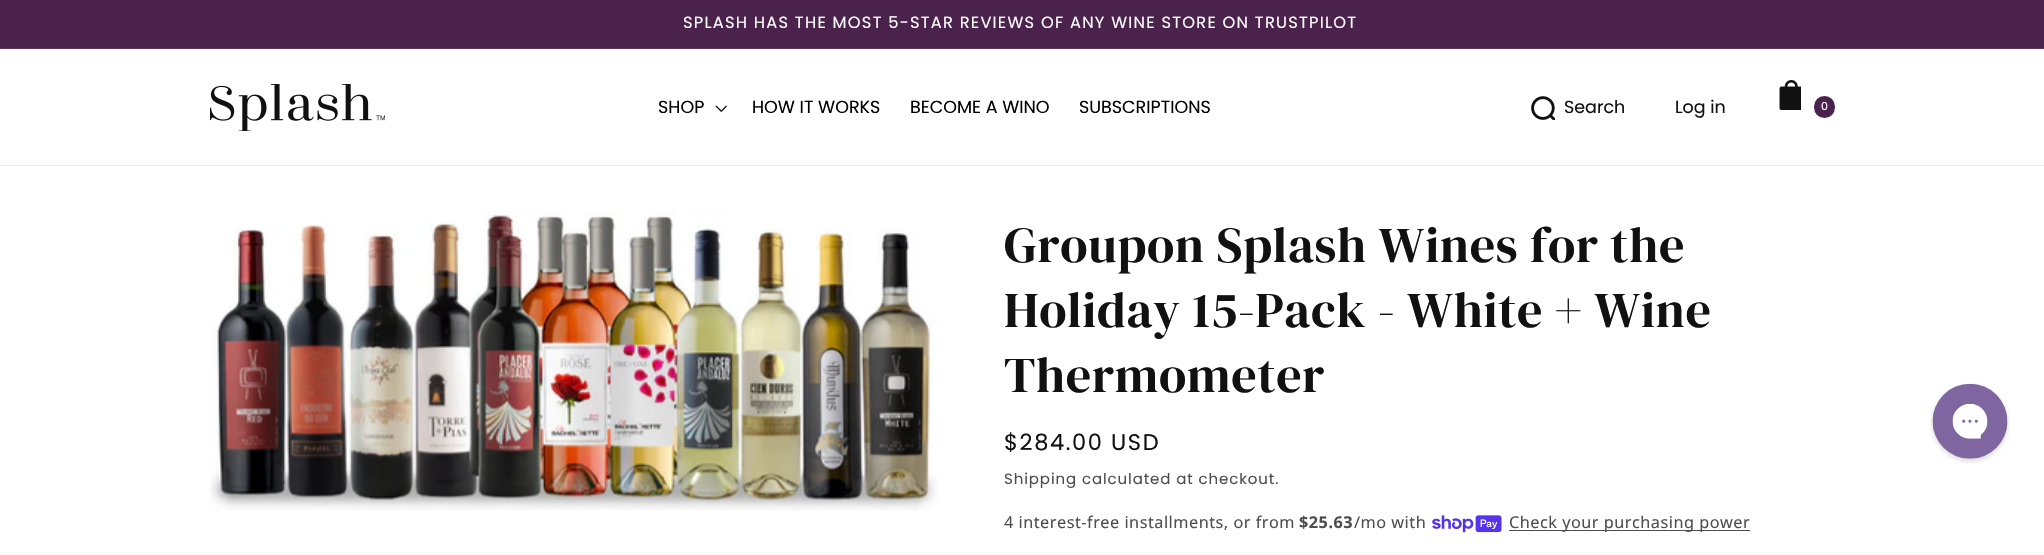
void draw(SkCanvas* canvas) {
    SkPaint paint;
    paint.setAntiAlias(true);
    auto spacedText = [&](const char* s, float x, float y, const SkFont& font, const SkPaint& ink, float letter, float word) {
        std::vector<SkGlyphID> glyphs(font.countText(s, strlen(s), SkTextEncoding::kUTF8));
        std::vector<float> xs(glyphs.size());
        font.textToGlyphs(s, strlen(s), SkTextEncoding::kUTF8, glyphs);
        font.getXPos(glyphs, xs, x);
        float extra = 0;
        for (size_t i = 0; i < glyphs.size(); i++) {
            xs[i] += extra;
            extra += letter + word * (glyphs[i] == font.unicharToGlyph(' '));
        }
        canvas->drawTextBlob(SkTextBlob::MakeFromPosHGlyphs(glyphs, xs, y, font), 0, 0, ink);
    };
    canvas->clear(0xFFFFFFFF);
    paint.setColor(0xFF4A224C);
    canvas->drawRect(SkRect::MakeXYWH(0, 0, 2044, 48), paint);
    paint.setColor(0xFF58345A);
    canvas->drawRect(SkRect::MakeXYWH(0, 48, 2044, 1), paint);
    SkFont font1(fontMgr->matchFamilyStyle("Poppins", SkFontStyle::Normal()), 16.25f);
    font1.setSubpixel(true);
    paint.setColor(0xFFFFFFFF);
    spacedText("SPLASH HAS THE MOST 5-STAR REVIEWS OF ANY WINE STORE ON TRUSTPILOT", 683, 28, font1, paint, 1.25f, 0);
    paint.setColor(0xFFECECEC);
    canvas->drawRect(SkRect::MakeXYWH(0, 165, 2044, 1), paint);
    canvas->drawImageRect(SkImages::DeferredFromEncodedData(SkData::MakeFromFileName("img1.png")), SkRect::MakeXYWH(210, 84, 175, 47), SkSamplingOptions());
    SkFont font2(fontMgr->matchFamilyStyle("Poppins", SkFontStyle::Normal()), 17.5f);
    font2.setSubpixel(true);
    paint.setColor(0xFF000000);
    canvas->drawString("SHOP", 658, 113, font2, paint);
    canvas->drawImageRect(SkImages::DeferredFromEncodedData(SkData::MakeFromFileName("img2.png")), SkRect::MakeXYWH(715, 105, 12, 7), SkSamplingOptions());
    canvas->drawString("HOW IT WORKS", 752, 113, font2, paint);
    canvas->drawString("BECOME A WINO", 910, 113, font2, paint);
    canvas->drawString("SUBSCRIPTIONS", 1079, 113, font2, paint);
    canvas->drawImageRect(SkImages::DeferredFromEncodedData(SkData::MakeFromFileName("img3.png")), SkRect::MakeXYWH(1531, 96, 24, 24), SkSamplingOptions());
    paint.setColor(0xFF111111);
    canvas->drawString("Search", 1564, 113, font2, paint);
    canvas->drawString("Log in", 1675, 113, font2, paint);
    canvas->drawImageRect(SkImages::DeferredFromEncodedData(SkData::MakeFromFileName("img4.png")), SkRect::MakeXYWH(1779, 80, 22, 30), SkSamplingOptions());
    paint.setColor(0xFF4A224C);
    canvas->drawRoundRect(SkRect::MakeXYWH(1814, 96, 21, 22), 10.5f, 10.5f, paint);
    SkFont font3(fontMgr->matchFamilyStyle("Poppins", SkFontStyle::Normal()), 11);
    font3.setSubpixel(true);
    paint.setColor(0xFFFFFFFF);
    canvas->drawString("0", 1821, 110, font3, paint);
    canvas->drawImageRect(SkImages::DeferredFromEncodedData(SkData::MakeFromFileName("img5.png")), SkRect::MakeXYWH(210, 211, 728, 300), SkSamplingOptions());
    SkFont font4(fontMgr->matchFamilyStyle("DM Serif Display", SkFontStyle::Normal()), 50);
    font4.setSubpixel(true);
    paint.setColor(0xFF111111);
    spacedText("Groupon Splash Wines for the", 1004, 262, font4, paint, 0.75f, 0);
    spacedText("Holiday 15-Pack - White + Wine", 1004, 327, font4, paint, 0.75f, 0);
    spacedText("Thermometer", 1004, 392, font4, paint, 0.75f, 0);
    SkFont font5(fontMgr->matchFamilyStyle("Poppins", SkFontStyle::Normal()), 22.5f);
    font5.setSubpixel(true);
    spacedText("$284.00 USD", 1004, 450, font5, paint, 1.6f, 0);
    SkFont font6(fontMgr->matchFamilyStyle("Poppins", SkFontStyle::Normal()), 15);
    font6.setSubpixel(true);
    paint.setColor(0xFF4D4D4D);
    spacedText("Shipping calculated at checkout.", 1004, 484, font6, paint, 0.9f, 0);
    SkFont font7(fontMgr->matchFamilyStyle("Noto Sans", SkFontStyle::Normal()), 16.25f);
    font7.setSubpixel(true);
    spacedText("4 interest-free installments, or from", 1004, 528, font7, paint, 0.5f, 0);
    SkFont font8(fontMgr->matchFamilyStyle("Noto Sans", SkFontStyle::Bold()), 16.25f);
    font8.setSubpixel(true);
    spacedText("$25.63", 1299, 528, font8, paint, 0.5f, 0);
    spacedText("/mo with", 1354, 528, font7, paint, 0.5f, 0);
    canvas->drawImageRect(SkImages::DeferredFromEncodedData(SkData::MakeFromFileName("img6.png")), SkRect::MakeXYWH(1432, 515, 70, 18), SkSamplingOptions());
    canvas->drawRect(SkRect::MakeXYWH(1509, 530, 241, 1), paint);
    spacedText("Check your purchasing power", 1509, 528, font7, paint, 0.5f, 0);
    canvas->drawImageRect(SkImages::DeferredFromEncodedData(SkData::MakeFromFileName("img7.png")), SkRect::MakeXYWH(1930, 383, 80, 81), SkSamplingOptions());
}
